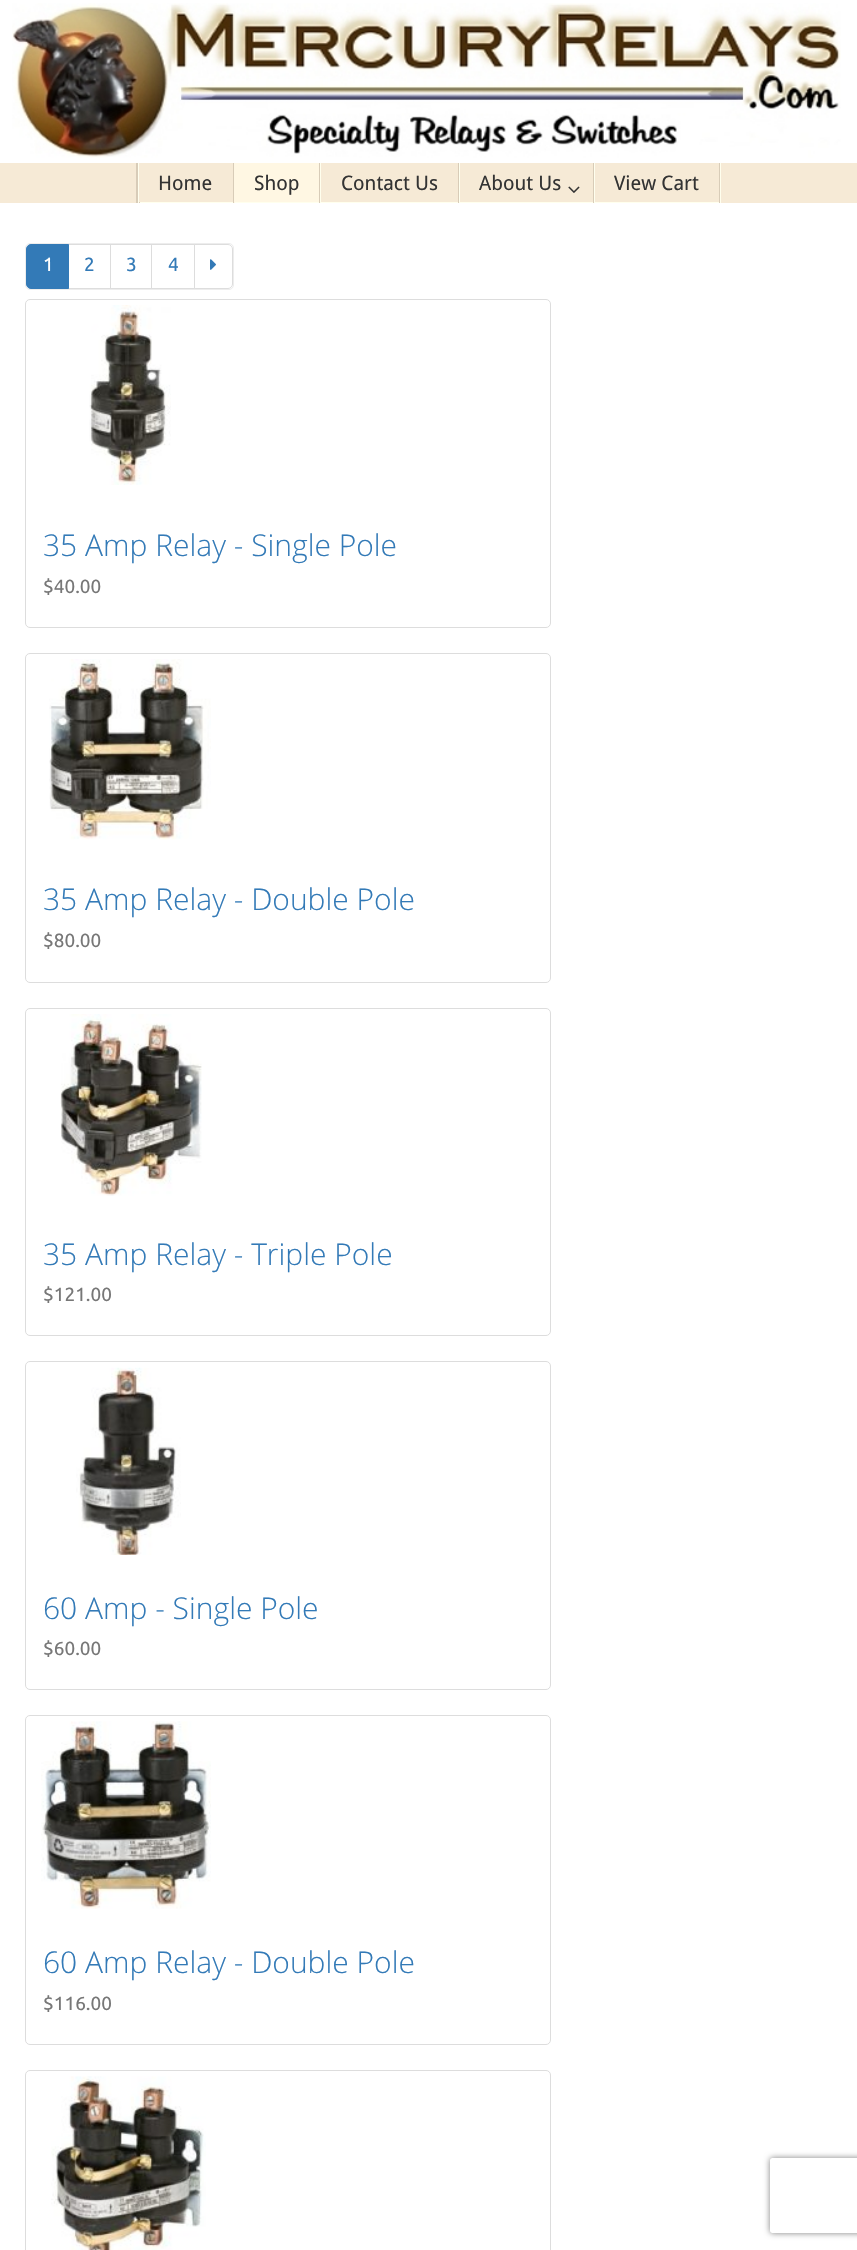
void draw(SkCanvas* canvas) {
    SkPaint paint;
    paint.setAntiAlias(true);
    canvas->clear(0xFFFFFFFF);
    canvas->drawImageRect(SkImages::DeferredFromEncodedData(SkData::MakeFromFileName("img1.png")), SkRect::MakeXYWH(12, 3, 829, 155), SkSamplingOptions());
    paint.setColor(0xFFF6EAD6);
    canvas->drawRect(SkRect::MakeXYWH(0, 163, 857, 40), paint);
    paint.setColor(0xFFD8CCB8);
    canvas->drawPath(SkPathBuilder().moveTo(136, 163).lineTo(136, 203).lineTo(719, 203).lineTo(719, 202).lineTo(138, 202).lineTo(138, 163).close().detach(), paint);
    paint.setColor(0xFFFFFFEE);
    canvas->drawRect(SkRect::MakeXYWH(138, 163, 1, 40), paint);
    canvas->drawPath(SkPathBuilder().moveTo(140, 202).lineTo(140, 203).lineTo(235, 203).lineTo(235, 163).lineTo(234, 163).lineTo(234, 202).close().detach(), paint);
    paint.setColor(0xFFD8CCB8);
    canvas->drawRect(SkRect::MakeXYWH(233, 163, 1, 40), paint);
    SkFont font1(fontMgr->matchFamilyStyle("Droid Sans", SkFontStyle::Normal()), 20);
    font1.setSubpixel(true);
    paint.setColor(0xFF333333);
    canvas->drawString("Home", 158, 190, font1, paint);
    paint.setColor(0xFFFFF7E3);
    canvas->drawRect(SkRect::MakeXYWH(234, 163, 85, 40), paint);
    paint.setColor(0xFFFFFFEE);
    canvas->drawPath(SkPathBuilder().moveTo(235, 202).lineTo(235, 203).lineTo(321, 203).lineTo(321, 163).lineTo(320, 163).lineTo(320, 202).close().detach(), paint);
    paint.setColor(0xFFD8CCB8);
    canvas->drawRect(SkRect::MakeXYWH(319, 163, 1, 40), paint);
    paint.setColor(0xFF333333);
    canvas->drawString("Shop", 254, 190, font1, paint);
    paint.setColor(0xFFFFFFEE);
    canvas->drawPath(SkPathBuilder().moveTo(321, 202).lineTo(321, 203).lineTo(460, 203).lineTo(460, 163).lineTo(459, 163).lineTo(459, 202).close().detach(), paint);
    paint.setColor(0xFFD8CCB8);
    canvas->drawRect(SkRect::MakeXYWH(458, 163, 1, 40), paint);
    paint.setColor(0xFF333333);
    canvas->drawString("Contact Us", 341, 190, font1, paint);
    paint.setColor(0xFFFFFFEE);
    canvas->drawPath(SkPathBuilder().moveTo(460, 202).lineTo(460, 203).lineTo(595, 203).lineTo(595, 163).lineTo(594, 163).lineTo(594, 202).close().detach(), paint);
    paint.setColor(0xFFD8CCB8);
    canvas->drawRect(SkRect::MakeXYWH(593, 163, 1, 40), paint);
    paint.setColor(0xFF333333);
    canvas->drawString("About Us", 479, 190, font1, paint);
    canvas->drawImageRect(SkImages::DeferredFromEncodedData(SkData::MakeFromFileName("img2.png")), SkRect::MakeXYWH(568, 186, 12, 7), SkSamplingOptions());
    paint.setColor(0xFFFFFFEE);
    canvas->drawPath(SkPathBuilder().moveTo(595, 202).lineTo(595, 203).lineTo(721, 203).lineTo(721, 163).lineTo(720, 163).lineTo(720, 202).close().detach(), paint);
    paint.setColor(0xFFD8CCB8);
    canvas->drawRect(SkRect::MakeXYWH(719, 163, 1, 40), paint);
    paint.setColor(0xFF333333);
    canvas->drawString("View Cart", 614, 190, font1, paint);
    paint.setStyle(SkPaint::kStroke_Style);
    paint.setStrokeWidth(1);
    paint.setColor(0xFFEDEDED);
    canvas->drawRoundRect(SkRect::MakeXYWH(25.5f, 243.5f, 208, 46), 4.5f, 4.5f, paint);
    paint.setColor(0xFFDDDDDD);
    canvas->drawRect(SkRect::MakeXYWH(68.5f, 244.5f, 42, 44), paint);
    paint.setStyle(SkPaint::kFill_Style);
    paint.setColor(0xFF337AB7);
    canvas->drawPath(SkPathBuilder().moveTo(31, 244.5f).lineTo(68.5f, 244.5f).lineTo(68.5f, 288.5f).lineTo(31, 288.5f).cubicTo(28.5f, 288.5f, 26.5f, 286.5f, 26.5f, 284).lineTo(26.5f, 249).cubicTo(26.5f, 246.5f, 28.5f, 244.5f, 31, 244.5f).close().detach(), paint);
    paint.setStyle(SkPaint::kStroke_Style);
    canvas->drawPath(SkPathBuilder().moveTo(31, 244.5f).lineTo(68.5f, 244.5f).lineTo(68.5f, 288.5f).lineTo(31, 288.5f).cubicTo(28.5f, 288.5f, 26.5f, 286.5f, 26.5f, 284).lineTo(26.5f, 249).cubicTo(26.5f, 246.5f, 28.5f, 244.5f, 31, 244.5f).close().detach(), paint);
    SkFont font2(fontMgr->matchFamilyStyle("Ubuntu", SkFontStyle::Normal()), 19);
    font2.setSubpixel(true);
    paint.setStyle(SkPaint::kFill_Style);
    paint.setColor(0xFFFFFFFF);
    canvas->drawString("1", 43, 271, font2, paint);
    paint.setColor(0xFF337AB7);
    canvas->drawString("2", 84, 271, font2, paint);
    paint.setStyle(SkPaint::kStroke_Style);
    paint.setColor(0xFFDDDDDD);
    canvas->drawRect(SkRect::MakeXYWH(110.5f, 244.5f, 42, 44), paint);
    paint.setStyle(SkPaint::kFill_Style);
    paint.setColor(0xFF337AB7);
    canvas->drawString("3", 126, 271, font2, paint);
    paint.setColor(0xFFFFFFFF);
    canvas->drawRect(SkRect::MakeXYWH(152, 245, 1, 43), paint);
    paint.setStyle(SkPaint::kStroke_Style);
    paint.setColor(0xFFDDDDDD);
    canvas->drawRect(SkRect::MakeXYWH(151.5f, 244.5f, 43, 44), paint);
    paint.setStyle(SkPaint::kFill_Style);
    paint.setColor(0xFF337AB7);
    canvas->drawString("4", 168, 271, font2, paint);
    paint.setColor(0xFFFFFFFF);
    canvas->drawPath(SkPathBuilder().moveTo(194.5f, 244.5f).lineTo(228, 244.5f).cubicTo(230.5f, 244.5f, 232.5f, 246.5f, 232.5f, 249).lineTo(232.5f, 284).cubicTo(232.5f, 286.5f, 230.5f, 288.5f, 228, 288.5f).lineTo(194.5f, 288.5f).close().detach(), paint);
    paint.setStyle(SkPaint::kStroke_Style);
    paint.setColor(0xFFDDDDDD);
    canvas->drawPath(SkPathBuilder().moveTo(194.5f, 244.5f).lineTo(228, 244.5f).cubicTo(230.5f, 244.5f, 232.5f, 246.5f, 232.5f, 249).lineTo(232.5f, 284).cubicTo(232.5f, 286.5f, 230.5f, 288.5f, 228, 288.5f).lineTo(194.5f, 288.5f).close().detach(), paint);
    canvas->drawImageRect(SkImages::DeferredFromEncodedData(SkData::MakeFromFileName("img3.png")), SkRect::MakeXYWH(210, 259, 6, 11), SkSamplingOptions());
    canvas->drawRoundRect(SkRect::MakeXYWH(25.5f, 299.5f, 525, 328), 4.5f, 4.5f, paint);
    canvas->drawImageRect(SkImages::DeferredFromEncodedData(SkData::MakeFromFileName("img4.png")), SkRect::MakeXYWH(89, 305, 82, 180), SkSamplingOptions());
    SkFont font3(fontMgr->matchFamilyStyle("Open Sans", SkFontStyle(300, SkFontStyle::kNormal_Width, SkFontStyle::kUpright_Slant)), 30);
    font3.setSubpixel(true);
    paint.setStyle(SkPaint::kFill_Style);
    paint.setColor(0xFF337AB7);
    canvas->drawString("35 Amp Relay - Single Pole", 43, 556, font3, paint);
    paint.setColor(0xFF777777);
    canvas->drawString("$40.00", 43, 593, font2, paint);
    paint.setStyle(SkPaint::kStroke_Style);
    paint.setColor(0xFFDDDDDD);
    canvas->drawRoundRect(SkRect::MakeXYWH(25.5f, 653.5f, 525, 329), 4.5f, 4.5f, paint);
    canvas->drawImageRect(SkImages::DeferredFromEncodedData(SkData::MakeFromFileName("img5.png")), SkRect::MakeXYWH(49, 659, 162, 181), SkSamplingOptions());
    paint.setStyle(SkPaint::kFill_Style);
    paint.setColor(0xFF337AB7);
    canvas->drawString("35 Amp Relay - Double Pole", 43, 910, font3, paint);
    paint.setColor(0xFF777777);
    canvas->drawString("$80.00", 43, 947, font2, paint);
    paint.setStyle(SkPaint::kStroke_Style);
    paint.setColor(0xFFDDDDDD);
    canvas->drawRoundRect(SkRect::MakeXYWH(25.5f, 1008.5f, 525, 327), 4.5f, 4.5f, paint);
    canvas->drawImageRect(SkImages::DeferredFromEncodedData(SkData::MakeFromFileName("img6.png")), SkRect::MakeXYWH(60, 1014, 142, 182), SkSamplingOptions());
    paint.setStyle(SkPaint::kFill_Style);
    paint.setColor(0xFF337AB7);
    canvas->drawString("35 Amp Relay - Triple Pole", 43, 1265, font3, paint);
    paint.setColor(0xFF777777);
    canvas->drawString("$121.00", 43, 1301, font2, paint);
    paint.setStyle(SkPaint::kStroke_Style);
    paint.setColor(0xFFDDDDDD);
    canvas->drawRoundRect(SkRect::MakeXYWH(25.5f, 1361.5f, 525, 328), 4.5f, 4.5f, paint);
    canvas->drawImageRect(SkImages::DeferredFromEncodedData(SkData::MakeFromFileName("img7.png")), SkRect::MakeXYWH(76, 1367, 105, 188), SkSamplingOptions());
    paint.setStyle(SkPaint::kFill_Style);
    paint.setColor(0xFF337AB7);
    canvas->drawString("60 Amp - Single Pole", 43, 1619, font3, paint);
    paint.setColor(0xFF777777);
    canvas->drawString("$60.00", 43, 1655, font2, paint);
    paint.setStyle(SkPaint::kStroke_Style);
    paint.setColor(0xFFDDDDDD);
    canvas->drawRoundRect(SkRect::MakeXYWH(25.5f, 1715.5f, 525, 329), 4.5f, 4.5f, paint);
    canvas->drawImageRect(SkImages::DeferredFromEncodedData(SkData::MakeFromFileName("img8.png")), SkRect::MakeXYWH(41, 1721, 170, 188), SkSamplingOptions());
    paint.setStyle(SkPaint::kFill_Style);
    paint.setColor(0xFF337AB7);
    canvas->drawString("60 Amp Relay - Double Pole", 43, 1973, font3, paint);
    paint.setColor(0xFF777777);
    canvas->drawString("$116.00", 43, 2010, font2, paint);
    paint.setStyle(SkPaint::kStroke_Style);
    paint.setColor(0xFFDDDDDD);
    canvas->drawRoundRect(SkRect::MakeXYWH(25.5f, 2070.5f, 525, 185), 4.5f, 4.5f, paint);
    canvas->drawImageRect(SkImages::DeferredFromEncodedData(SkData::MakeFromFileName("img9.png")), SkRect::MakeXYWH(51, 2076, 155, 174), SkSamplingOptions());
    canvas->save();
    canvas->clipPath(SkPathBuilder(SkPathFillType::kEvenOdd).moveTo(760, 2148).lineTo(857, 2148).lineTo(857, 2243).lineTo(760, 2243).close().moveTo(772.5f, 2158).lineTo(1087.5f, 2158).cubicTo(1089, 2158, 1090, 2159, 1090, 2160.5f).lineTo(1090, 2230.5f).cubicTo(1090, 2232, 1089, 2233, 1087.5f, 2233).lineTo(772.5f, 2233).cubicTo(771, 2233, 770, 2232, 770, 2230.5f).lineTo(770, 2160.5f).cubicTo(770, 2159, 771, 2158, 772.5f, 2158).close().detach(), true);
    paint.setStyle(SkPaint::kFill_Style);
    paint.setColor(0xFF808080);
    paint.setMaskFilter(SkMaskFilter::MakeBlur(kNormal_SkBlurStyle, 3));
    canvas->drawRoundRect(SkRect::MakeXYWH(770, 2158, 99, 75), 2.5f, 2.5f, paint);
    paint.setMaskFilter(nullptr);
    canvas->restore();
}
